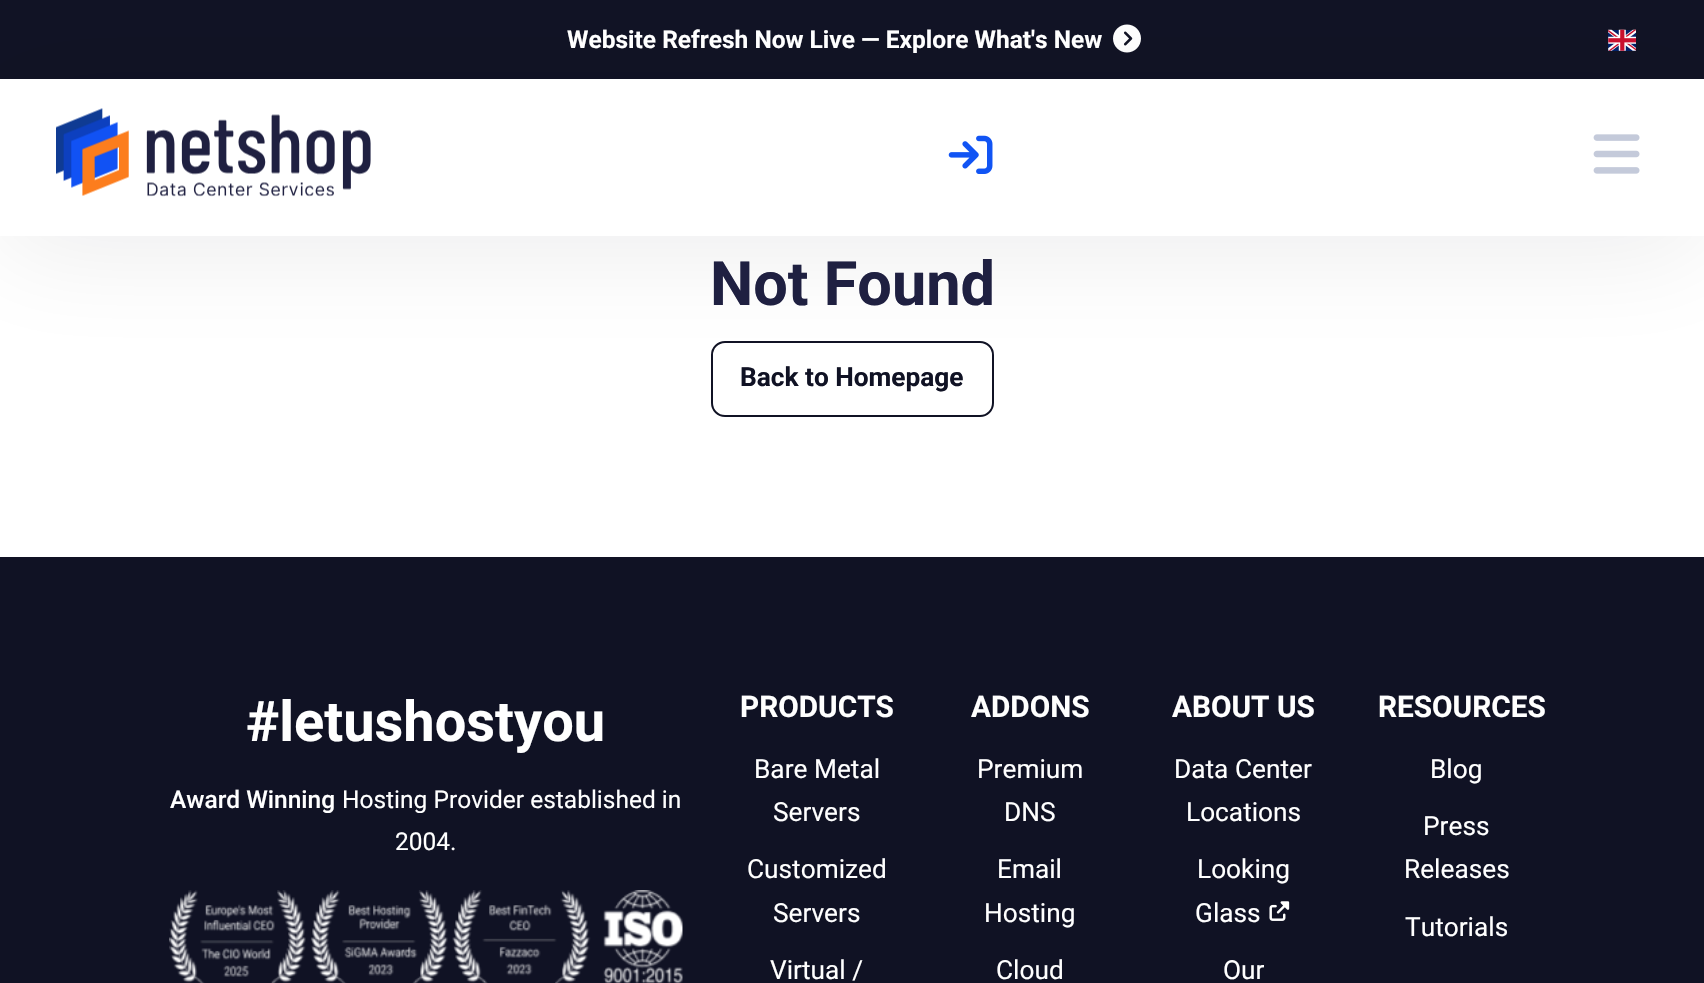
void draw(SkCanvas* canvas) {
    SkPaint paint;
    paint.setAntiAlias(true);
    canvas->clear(0xFFFFFFFF);
    paint.setColor(0xFF101224);
    canvas->drawRect(SkRect::MakeXYWH(0, 0, 1704, 79), paint);
    canvas->drawImageRect(SkImages::DeferredFromEncodedData(SkData::MakeFromFileName("img4.png")), SkRect::MakeXYWH(1113, 24, 28, 29), SkSamplingOptions());
    paint.setStyle(SkPaint::kStroke_Style);
    paint.setStrokeWidth(2);
    canvas->drawRoundRect(SkRect::MakeXYWH(712, 342, 281, 74), 13, 13, paint);
    canvas->save();
    canvas->clipPath(SkPathBuilder(SkPathFillType::kEvenOdd).moveTo(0, 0).lineTo(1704, 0).lineTo(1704, 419).lineTo(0, 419).close().moveTo(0, 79).lineTo(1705, 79).lineTo(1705, 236).lineTo(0, 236).close().detach(), true);
    paint.setStyle(SkPaint::kFill_Style);
    paint.setColor(0x140A0E1D);
    paint.setMaskFilter(SkMaskFilter::MakeBlur(kNormal_SkBlurStyle, 56));
    canvas->drawRect(SkRect::MakeXYWH(0, 93, 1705, 157), paint);
    paint.setMaskFilter(nullptr);
    canvas->restore();
    canvas->drawImageRect(SkImages::DeferredFromEncodedData(SkData::MakeFromFileName("img1.png")), SkRect::MakeXYWH(56, 108, 315, 89), SkSamplingOptions());
    canvas->drawImageRect(SkImages::DeferredFromEncodedData(SkData::MakeFromFileName("img2.png")), SkRect::MakeXYWH(948, 135, 45, 39), SkSamplingOptions());
    canvas->drawImageRect(SkImages::DeferredFromEncodedData(SkData::MakeFromFileName("img3.png")), SkRect::MakeXYWH(1593, 134, 47, 40), SkSamplingOptions());
    SkFont font1(fontMgr->matchFamilyStyle("Roboto", SkFontStyle::Bold()), 24.5f);
    font1.setSubpixel(true);
    paint.setColor(0xFFFFFFFF);
    canvas->drawString("Website Refresh Now Live — Explore What's New", 567, 48, font1, paint);
    canvas->drawImageRect(SkImages::DeferredFromEncodedData(SkData::MakeFromFileName("img5.png")), SkRect::MakeXYWH(1608, 29, 28, 22), SkSamplingOptions());
    SkFont font2(fontMgr->matchFamilyStyle("Roboto", SkFontStyle::Bold()), 61.25f);
    font2.setSubpixel(true);
    paint.setColor(0xFF1F2041);
    canvas->drawString("Not Found", 710, 305, font2, paint);
    SkFont font3(fontMgr->matchFamilyStyle("Roboto", SkFontStyle::Bold()), 26.25f);
    font3.setSubpixel(true);
    paint.setColor(0xFF101224);
    canvas->drawString("Back to Homepage", 740, 386, font3, paint);
    canvas->drawRect(SkRect::MakeXYWH(0, 557, 1704, 426), paint);
    SkFont font4(fontMgr->matchFamilyStyle("Roboto", SkFontStyle::Bold()), 56);
    font4.setSubpixel(true);
    paint.setColor(0xFFFFFFFF);
    canvas->drawString("#letushostyou", 246, 741, font4, paint);
    SkFont font5(fontMgr->matchFamilyStyle("Roboto", SkFontStyle(500, SkFontStyle::kNormal_Width, SkFontStyle::kUpright_Slant)), 24.5f);
    font5.setSubpixel(true);
    canvas->drawString("Award Winning", 170, 808, font5, paint);
    SkFont font6(fontMgr->matchFamilyStyle("Roboto", SkFontStyle::Normal()), 24.5f);
    font6.setSubpixel(true);
    canvas->drawString("Hosting Provider established in", 342, 808, font6, paint);
    canvas->drawString("2004.", 395, 850, font6, paint);
    canvas->drawImageRect(SkImages::DeferredFromEncodedData(SkData::MakeFromFileName("img6.png")), SkRect::MakeXYWH(169, 890, 514, 93), SkSamplingOptions());
    SkFont font7(fontMgr->matchFamilyStyle("Roboto", SkFontStyle::Bold()), 29.75f);
    font7.setSubpixel(true);
    canvas->drawString("PRODUCTS", 740, 717, font7, paint);
    SkFont font8(fontMgr->matchFamilyStyle("Roboto", SkFontStyle::Normal()), 26.25f);
    font8.setSubpixel(true);
    canvas->drawString("Bare Metal", 754, 778, font8, paint);
    canvas->drawString("Servers", 773, 821, font8, paint);
    canvas->drawString("Customized", 747, 878, font8, paint);
    canvas->drawString("Servers", 773, 922, font8, paint);
    canvas->drawString("Virtual /", 770, 979, font8, paint);
    canvas->drawString("ADDONS", 971, 717, font7, paint);
    canvas->drawString("Premium", 977, 778, font8, paint);
    canvas->drawString("DNS", 1004, 821, font8, paint);
    canvas->drawString("Email", 997, 878, font8, paint);
    canvas->drawString("Hosting", 984, 922, font8, paint);
    canvas->drawString("Cloud", 996, 979, font8, paint);
    canvas->drawString("ABOUT US", 1172, 717, font7, paint);
    canvas->drawString("Data Center", 1174, 778, font8, paint);
    canvas->drawString("Locations", 1186, 821, font8, paint);
    canvas->drawString("Looking", 1197, 878, font8, paint);
    canvas->drawString("Glass", 1195, 922, font8, paint);
    canvas->drawImageRect(SkImages::DeferredFromEncodedData(SkData::MakeFromFileName("img7.png")), SkRect::MakeXYWH(1269, 901, 21, 20), SkSamplingOptions());
    canvas->drawString("Our", 1223, 979, font8, paint);
    canvas->drawString("RESOURCES", 1378, 717, font7, paint);
    canvas->drawString("Blog", 1430, 778, font8, paint);
    canvas->drawString("Press", 1423, 835, font8, paint);
    canvas->drawString("Releases", 1404, 878, font8, paint);
    canvas->drawString("Tutorials", 1405, 936, font8, paint);
}
